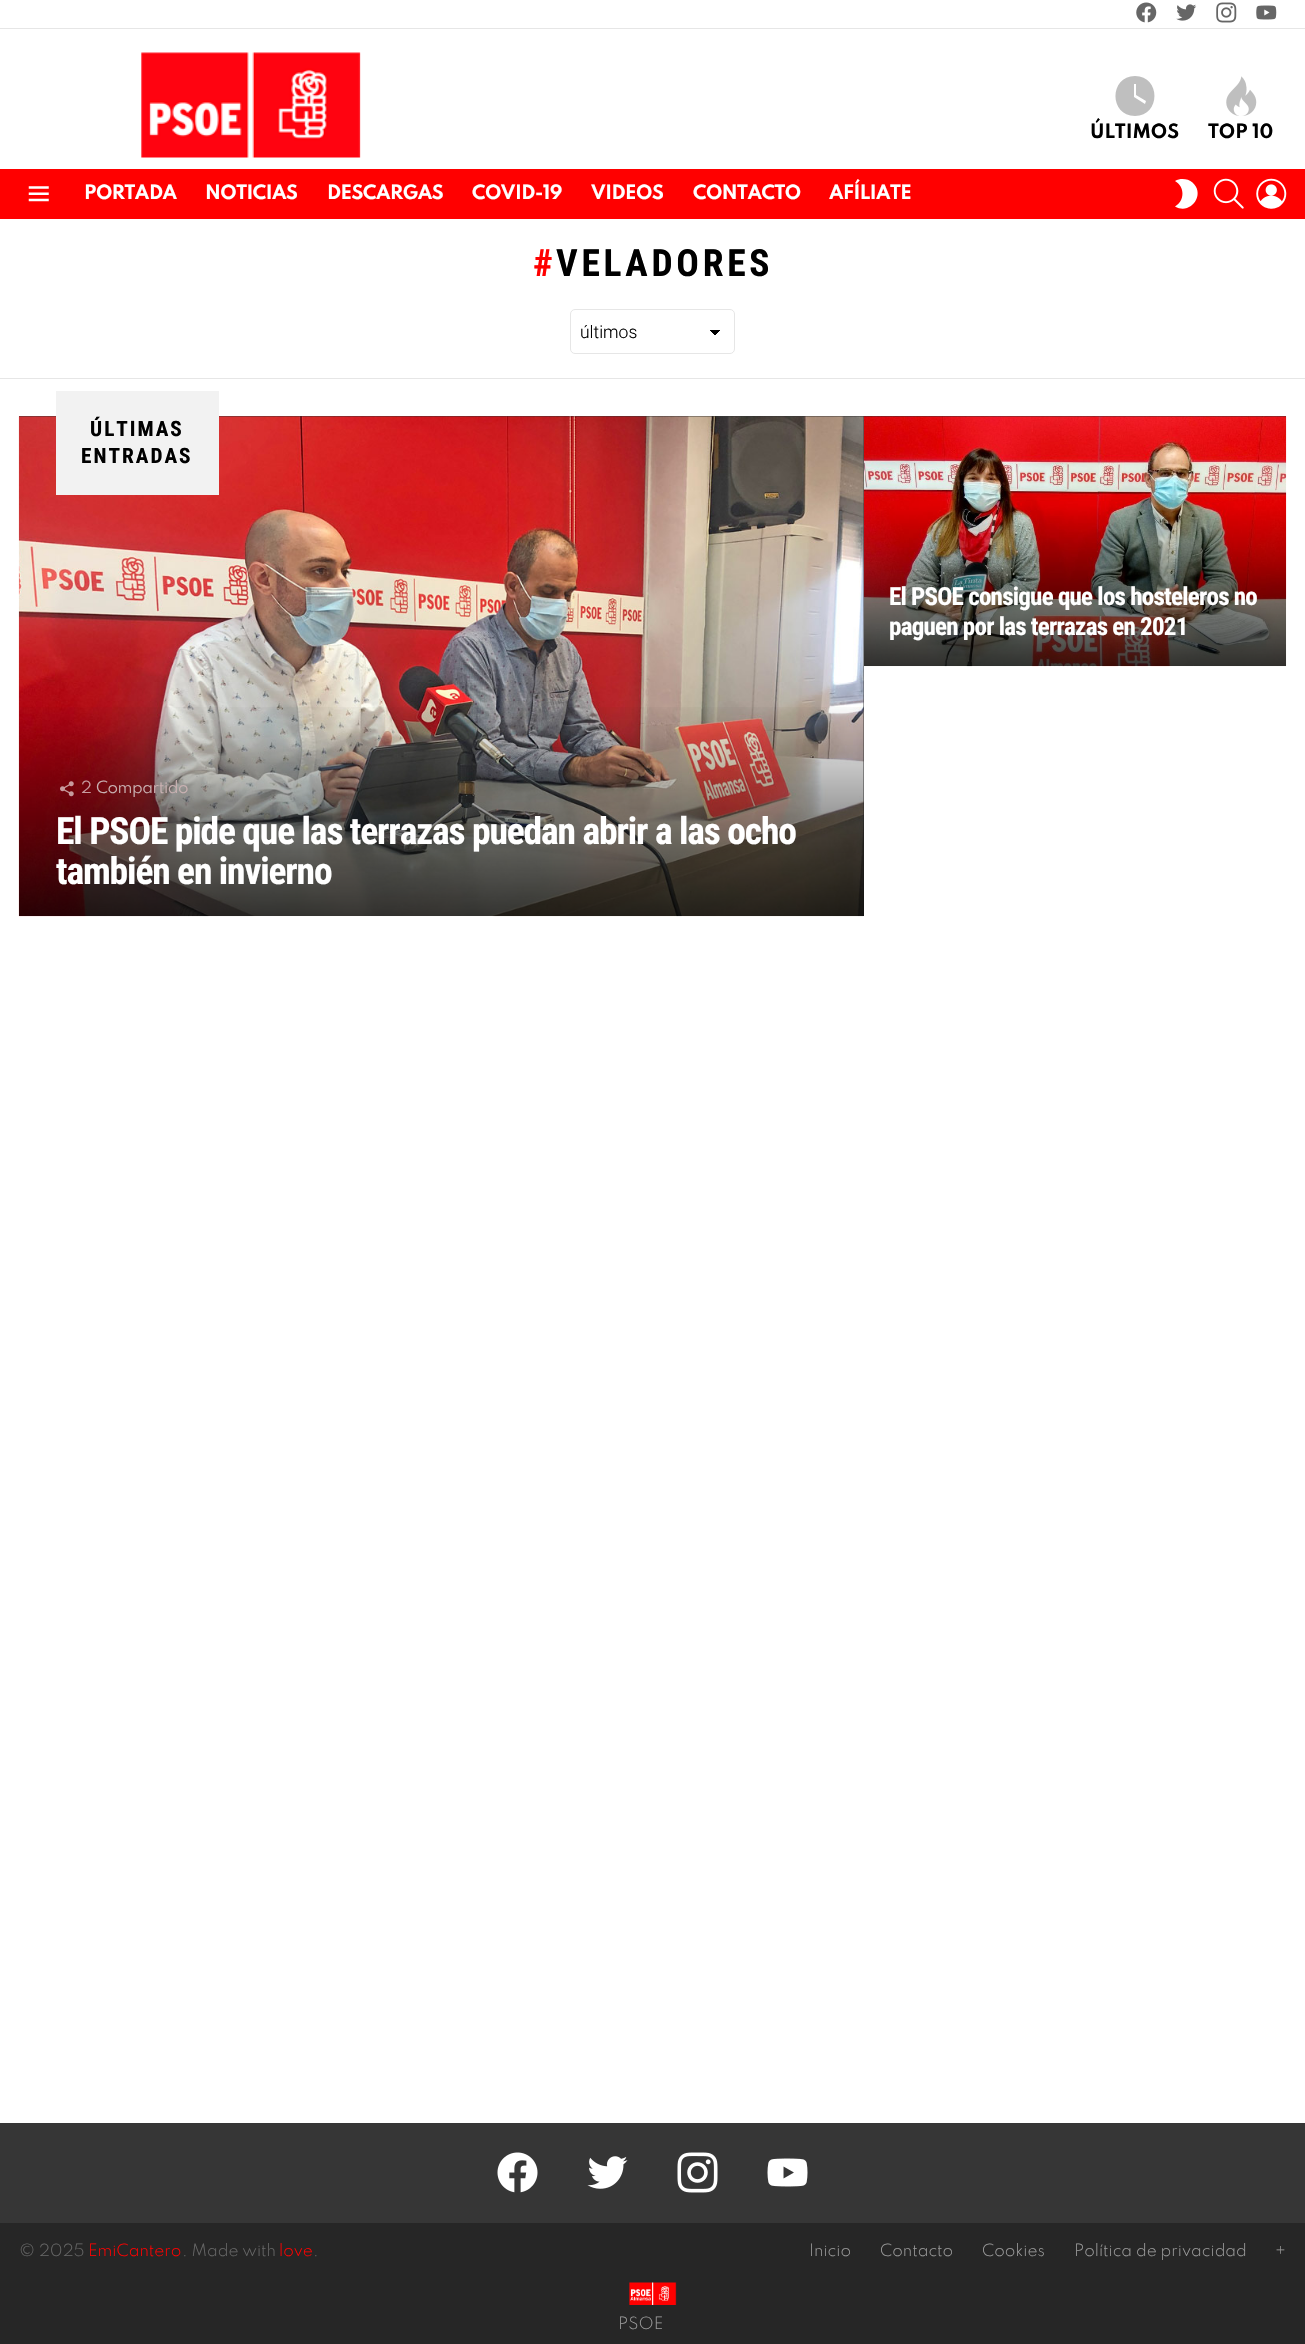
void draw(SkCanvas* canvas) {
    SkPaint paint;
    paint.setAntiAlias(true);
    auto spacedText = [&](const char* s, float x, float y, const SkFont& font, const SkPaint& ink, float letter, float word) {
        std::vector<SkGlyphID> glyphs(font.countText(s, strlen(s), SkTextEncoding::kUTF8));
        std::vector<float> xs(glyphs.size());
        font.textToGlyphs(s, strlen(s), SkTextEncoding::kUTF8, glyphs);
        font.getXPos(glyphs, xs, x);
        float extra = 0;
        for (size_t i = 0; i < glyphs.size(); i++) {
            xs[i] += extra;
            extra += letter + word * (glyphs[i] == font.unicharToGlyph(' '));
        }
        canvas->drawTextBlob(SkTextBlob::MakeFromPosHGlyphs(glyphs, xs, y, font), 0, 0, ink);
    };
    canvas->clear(0xFFFFFFFF);
    canvas->drawImageRect(SkImages::DeferredFromEncodedData(SkData::MakeFromFileName("img1.png")), SkRect::MakeXYWH(1136, 2, 21, 21), SkSamplingOptions());
    canvas->drawImageRect(SkImages::DeferredFromEncodedData(SkData::MakeFromFileName("img2.png")), SkRect::MakeXYWH(1176, 4, 21, 17), SkSamplingOptions());
    canvas->drawImageRect(SkImages::DeferredFromEncodedData(SkData::MakeFromFileName("img3.png")), SkRect::MakeXYWH(1216, 2, 21, 21), SkSamplingOptions());
    canvas->drawImageRect(SkImages::DeferredFromEncodedData(SkData::MakeFromFileName("img4.png")), SkRect::MakeXYWH(1256, 5, 21, 15), SkSamplingOptions());
    paint.setColor(0xFFE6E6E6);
    canvas->drawRect(SkRect::MakeXYWH(0, 28, 1305, 1), paint);
    canvas->drawImageRect(SkImages::DeferredFromEncodedData(SkData::MakeFromFileName("img5.png")), SkRect::MakeXYWH(141, 52, 220, 106), SkSamplingOptions());
    paint.setColor(0xFFBFBFBF);
    canvas->drawPath(SkPathBuilder().moveTo(1135, 76).cubicTo(1109, 76, 1109, 116, 1135, 116).cubicTo(1161, 116, 1161, 76, 1135, 76).close().moveTo(1145, 104).lineTo(1134, 97).lineTo(1134, 84).lineTo(1136, 84).lineTo(1136, 95).lineTo(1146, 101).close().detach(), paint);
    SkFont font1(fontMgr->matchFamilyStyle("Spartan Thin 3", SkFontStyle(100, SkFontStyle::kNormal_Width, SkFontStyle::kUpright_Slant)), 17.5f);
    font1.setSubpixel(true);
    paint.setColor(0xFF000000);
    canvas->drawString("ÚLTIMOS", 1090, 138, font1, paint);
    canvas->drawImageRect(SkImages::DeferredFromEncodedData(SkData::MakeFromFileName("img6.png")), SkRect::MakeXYWH(1226, 76, 31, 40), SkSamplingOptions());
    canvas->drawString("TOP 10", 1208, 138, font1, paint);
    paint.setColor(0xFFFF0000);
    canvas->drawRect(SkRect::MakeXYWH(0, 169, 1305, 50), paint);
    canvas->drawImageRect(SkImages::DeferredFromEncodedData(SkData::MakeFromFileName("img7.png")), SkRect::MakeXYWH(28, 186, 21, 16), SkSamplingOptions());
    paint.setColor(0xFFFFFFFF);
    spacedText("PORTADA", 84, 199, font1, paint, -0.5f, 0);
    spacedText("NOTICIAS", 205, 199, font1, paint, -0.5f, 0);
    spacedText("DESCARGAS", 327, 199, font1, paint, -0.5f, 0);
    spacedText("COVID-19", 472, 199, font1, paint, -0.5f, 0);
    spacedText("VIDEOS", 591, 199, font1, paint, -0.5f, 0);
    spacedText("CONTACTO", 693, 199, font1, paint, -0.5f, 0);
    spacedText("AFÍLIATE", 829, 199, font1, paint, -0.5f, 0);
    canvas->drawPath(SkPathBuilder().moveTo(1182.5f, 179).cubicTo(1180, 179, 1177.5f, 179.5f, 1175, 181).cubicTo(1185, 186.5f, 1185, 201, 1175, 206.5f).cubicTo(1190.5f, 215.5f, 1206, 194.5f, 1192.5f, 182.5f).cubicTo(1190, 180, 1186, 179, 1182.5f, 179).close().detach(), paint);
    canvas->drawImageRect(SkImages::DeferredFromEncodedData(SkData::MakeFromFileName("img8.png")), SkRect::MakeXYWH(1213, 178, 31, 31), SkSamplingOptions());
    canvas->drawImageRect(SkImages::DeferredFromEncodedData(SkData::MakeFromFileName("img9.png")), SkRect::MakeXYWH(1256, 178, 31, 31), SkSamplingOptions());
    SkFont font2(fontMgr->matchFamilyStyle("Roboto Condensed", SkFontStyle::Bold()), 37.5f);
    font2.setSubpixel(true);
    paint.setColor(0xFFFF0000);
    spacedText("#", 533, 276, font2, paint, 3.75f, 0);
    paint.setColor(0xFF000000);
    spacedText("VELADORES", 556, 276, font2, paint, 3.75f, 0);
    {
        const SkColor colors[] = {0xFF000000, 0xFFFFFFFF};
        const float stops[] = {0.5f, 0.5f};
        const SkPoint ends[] = {{715, 330}, {721, 335}};
        paint.setShader(SkGradientShader::MakeLinear(ends, colors, stops, 2, SkTileMode::kClamp));
        paint.setAlpha(255);
    }
    canvas->drawRect(SkRect::MakeXYWH(715, 330, 6, 5), paint);
    {
        const SkColor colors[] = {0xFFFFFFFF, 0xFF000000};
        const float stops[] = {0.5f, 0.5f};
        const SkPoint ends[] = {{709, 335}, {715, 330}};
        paint.setShader(SkGradientShader::MakeLinear(ends, colors, stops, 2, SkTileMode::kClamp));
        paint.setAlpha(255);
    }
    canvas->drawRect(SkRect::MakeXYWH(709, 330, 6, 5), paint);
    paint.setStyle(SkPaint::kStroke_Style);
    paint.setStrokeWidth(1);
    paint.setShader(nullptr);
    paint.setColor(0xFFE6E6E6);
    canvas->drawRoundRect(SkRect::MakeXYWH(570.5f, 309.5f, 164, 44), 4.5f, 4.5f, paint);
    SkFont font3(fontMgr->matchFamilyStyle("Roboto", SkFontStyle(300, SkFontStyle::kNormal_Width, SkFontStyle::kUpright_Slant)), 17.5f);
    font3.setSubpixel(true);
    paint.setStyle(SkPaint::kFill_Style);
    paint.setColor(0xFF000000);
    canvas->drawString("últimos", 580, 338, font3, paint);
    paint.setColor(0xFFE6E6E6);
    canvas->drawRect(SkRect::MakeXYWH(0, 378, 1305, 1), paint);
    paint.setColor(0xFF333333);
    canvas->drawRect(SkRect::MakeXYWH(19, 416, 845, 500), paint);
    canvas->drawImageRect(SkImages::DeferredFromEncodedData(SkData::MakeFromFileName("img11.png")), SkRect::MakeXYWH(18, 416, 846, 501), SkSamplingOptions());
    paint.setColor(0xFFF2F2F2);
    canvas->drawRect(SkRect::MakeXYWH(56, 391, 163, 104), paint);
    SkFont font4(fontMgr->matchFamilyStyle("Roboto Condensed", SkFontStyle::Bold()), 21.25f);
    font4.setSubpixel(true);
    paint.setColor(0xFF000000);
    spacedText("ÚLTIMAS", 90, 436, font4, paint, 2, 0);
    spacedText("ENTRADAS", 81, 463, font4, paint, 2, 0);
    paint.setColor(0xFF333333);
    canvas->drawRect(SkRect::MakeXYWH(864, 416, 422, 1), paint);
    canvas->drawImageRect(SkImages::DeferredFromEncodedData(SkData::MakeFromFileName("img10.png")), SkRect::MakeXYWH(863, 416, 424, 251), SkSamplingOptions());
    SkFont font5(fontMgr->matchFamilyStyle("Roboto Condensed", SkFontStyle::Bold()), 25);
    font5.setSubpixel(true);
    paint.setColor(0xFFFFFFFF);
    spacedText("El PSOE consigue que los hosteleros no", 889, 605, font5, paint, -0.75f, 0);
    spacedText("paguen por las terrazas en 2021", 889, 635, font5, paint, -0.75f, 0);
    {
        const SkColor colors[] = {0x00000000, 0xBF000000};
        const float stops[] = {0, 1};
        const SkPoint ends[] = {{441, 701}, {441, 916}};
        paint.setShader(SkGradientShader::MakeLinear(ends, colors, stops, 2, SkTileMode::kClamp));
        paint.setAlpha(255);
    }
    canvas->drawRect(SkRect::MakeXYWH(19, 707, 845, 209), paint);
    canvas->drawImageRect(SkImages::DeferredFromEncodedData(SkData::MakeFromFileName("img12.png")), SkRect::MakeXYWH(60, 781, 14, 16), SkSamplingOptions());
    SkFont font6(fontMgr->matchFamilyStyle("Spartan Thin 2", SkFontStyle(100, SkFontStyle::kNormal_Width, SkFontStyle::kUpright_Slant)), 15);
    font6.setSubpixel(true);
    paint.setShader(nullptr);
    paint.setColor(0xFFC79A9E);
    spacedText("2", 81, 793, font6, paint, -0.5f, 0);
    paint.setColor(0xFFC9B1B2);
    spacedText("Compartido", 96, 793, font6, paint, -0.5f, 0);
    paint.setColor(0xFFFFFFFF);
    spacedText("El PSOE pide que las terrazas puedan abrir a las ocho", 56, 844, font2, paint, -1.12f, 0);
    spacedText("también en invierno", 56, 884, font2, paint, -1.12f, 0);
    paint.setColor(0xFF363636);
    canvas->drawRect(SkRect::MakeXYWH(0, 2123, 1305, 100), paint);
    canvas->drawImageRect(SkImages::DeferredFromEncodedData(SkData::MakeFromFileName("img13.png")), SkRect::MakeXYWH(497, 2152, 41, 41), SkSamplingOptions());
    canvas->drawImageRect(SkImages::DeferredFromEncodedData(SkData::MakeFromFileName("img14.png")), SkRect::MakeXYWH(587, 2156, 41, 33), SkSamplingOptions());
    canvas->drawImageRect(SkImages::DeferredFromEncodedData(SkData::MakeFromFileName("img15.png")), SkRect::MakeXYWH(677, 2152, 41, 41), SkSamplingOptions());
    canvas->drawImageRect(SkImages::DeferredFromEncodedData(SkData::MakeFromFileName("img16.png")), SkRect::MakeXYWH(767, 2158, 41, 29), SkSamplingOptions());
    paint.setColor(0xFF262626);
    canvas->drawRect(SkRect::MakeXYWH(0, 2223, 1305, 121), paint);
    SkFont font7(fontMgr->matchFamilyStyle("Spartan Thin", SkFontStyle(100, SkFontStyle::kNormal_Width, SkFontStyle::kUpright_Slant)), 15);
    font7.setSubpixel(true);
    paint.setColor(0xFF666666);
    canvas->drawString("© 2025", 19, 2256, font7, paint);
    paint.setColor(0xFFFF0000);
    canvas->drawString("EmiCantero", 88, 2256, font7, paint);
    paint.setColor(0xFF666666);
    canvas->drawString(". Made with", 182, 2256, font7, paint);
    paint.setColor(0xFFFF0000);
    canvas->drawString("love", 279, 2256, font7, paint);
    paint.setColor(0xFF666666);
    canvas->drawString(".", 313, 2256, font7, paint);
    paint.setColor(0xFF999999);
    canvas->drawString("Inicio", 809, 2256, font7, paint);
    canvas->drawString("Contacto", 880, 2256, font7, paint);
    canvas->drawString("Cookies", 982, 2256, font7, paint);
    canvas->drawString("Política de privacidad", 1074, 2256, font7, paint);
    canvas->drawString("+", 1275, 2256, font7, paint);
    canvas->drawImageRect(SkImages::DeferredFromEncodedData(SkData::MakeFromFileName("img17.png")), SkRect::MakeXYWH(629, 2282, 48, 23), SkSamplingOptions());
    canvas->drawString("PSOE", 618, 2329, font7, paint);
}
